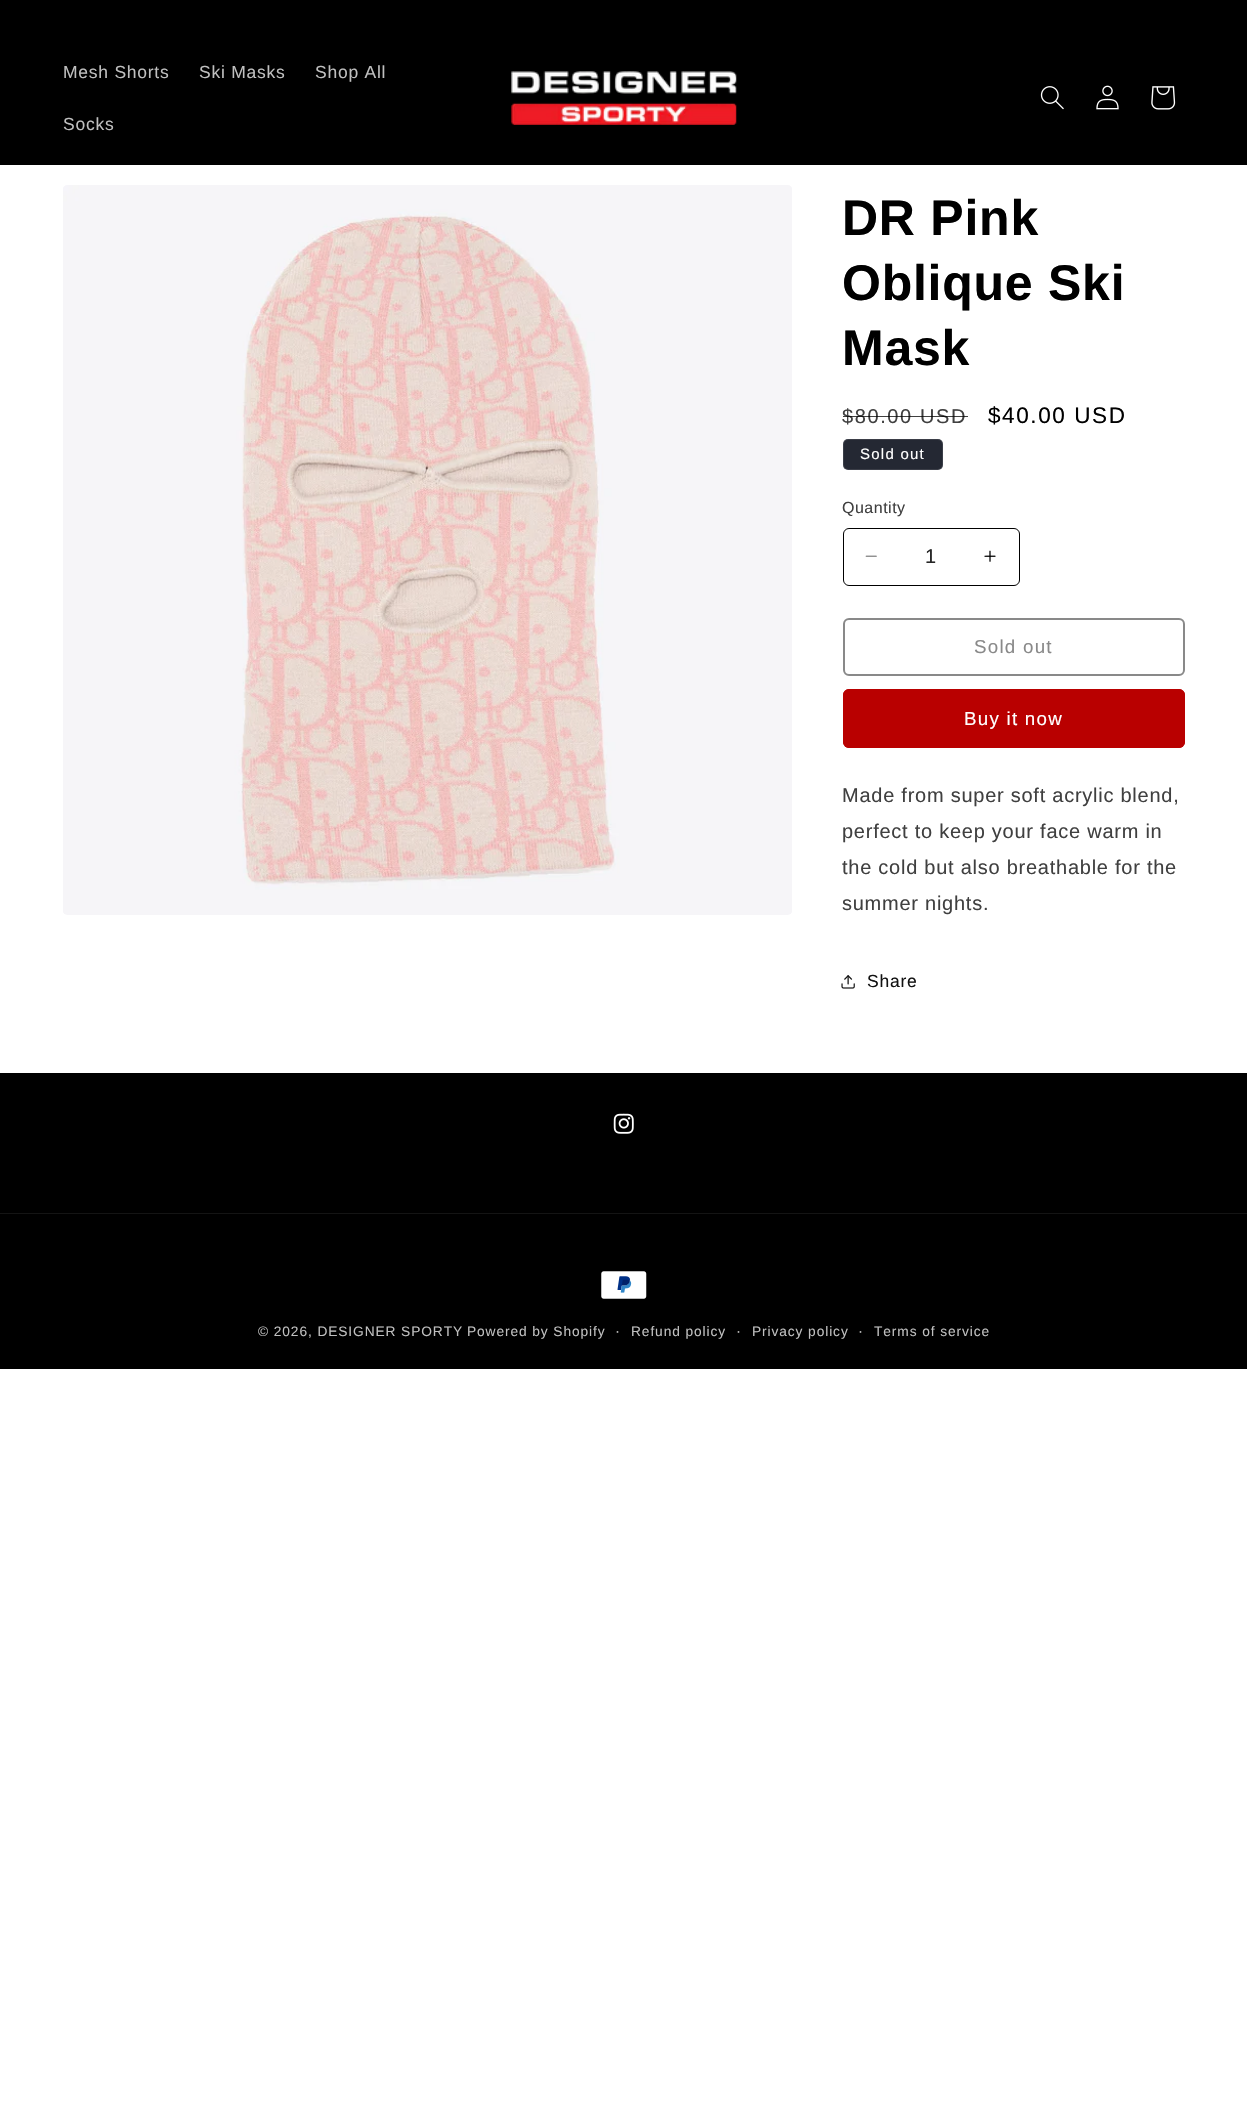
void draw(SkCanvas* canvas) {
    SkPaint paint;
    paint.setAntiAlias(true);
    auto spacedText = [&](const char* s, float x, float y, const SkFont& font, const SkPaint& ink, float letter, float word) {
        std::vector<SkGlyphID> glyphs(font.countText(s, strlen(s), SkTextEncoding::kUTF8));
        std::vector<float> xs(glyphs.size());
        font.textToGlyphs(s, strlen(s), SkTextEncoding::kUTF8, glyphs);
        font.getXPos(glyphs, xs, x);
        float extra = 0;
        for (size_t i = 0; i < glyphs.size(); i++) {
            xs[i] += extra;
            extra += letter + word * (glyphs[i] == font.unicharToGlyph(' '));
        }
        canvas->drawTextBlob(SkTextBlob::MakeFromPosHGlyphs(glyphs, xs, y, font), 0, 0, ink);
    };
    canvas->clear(0xFFFFFFFF);
    paint.setColor(0xFF000000);
    canvas->drawRect(SkRect::MakeXYWH(0, 0, 1247, 165), paint);
    SkFont font1(fontMgr->matchFamilyStyle("Liberation Sans", SkFontStyle::Normal()), 17.5f);
    font1.setSubpixel(true);
    paint.setColor(0xFFBFBFBF);
    spacedText("Mesh Shorts", 63, 78, font1, paint, 0.75f, 0);
    spacedText("Ski Masks", 199, 78, font1, paint, 0.75f, 0);
    spacedText("Shop All", 315, 78, font1, paint, 0.75f, 0);
    spacedText("Socks", 63, 130, font1, paint, 0.75f, 0);
    canvas->drawImageRect(SkImages::DeferredFromEncodedData(SkData::MakeFromFileName("img1.png")), SkRect::MakeXYWH(511, 71, 226, 54), SkSamplingOptions());
    canvas->drawImageRect(SkImages::DeferredFromEncodedData(SkData::MakeFromFileName("img2.png")), SkRect::MakeXYWH(1040, 86, 24, 24), SkSamplingOptions());
    canvas->drawImageRect(SkImages::DeferredFromEncodedData(SkData::MakeFromFileName("img3.png")), SkRect::MakeXYWH(1096, 85, 23, 25), SkSamplingOptions());
    canvas->drawImageRect(SkImages::DeferredFromEncodedData(SkData::MakeFromFileName("img4.png")), SkRect::MakeXYWH(1151, 86, 25, 24), SkSamplingOptions());
    canvas->drawImageRect(SkImages::DeferredFromEncodedData(SkData::MakeFromFileName("img5.png")), SkRect::MakeXYWH(63, 185, 729, 730), SkSamplingOptions());
    SkFont font2(fontMgr->matchFamilyStyle("Liberation Sans", SkFontStyle::Bold()), 50);
    font2.setSubpixel(true);
    paint.setColor(0xFF000000);
    spacedText("DR Pink", 842, 235, font2, paint, 0.75f, 0);
    spacedText("Oblique Ski", 842, 300, font2, paint, 0.75f, 0);
    spacedText("Mask", 842, 365, font2, paint, 0.75f, 0);
    SkFont font3(fontMgr->matchFamilyStyle("Liberation Sans", SkFontStyle::Normal()), 20);
    font3.setSubpixel(true);
    paint.setColor(0xFF404040);
    spacedText("$80.00 USD", 842, 423, font3, paint, 1.6f, 0);
    paint.setColor(0xBF000000);
    canvas->drawRect(SkRect::MakeXYWH(843, 416, 125, 1), paint);
    SkFont font4(fontMgr->matchFamilyStyle("Liberation Sans", SkFontStyle::Normal()), 22.5f);
    font4.setSubpixel(true);
    paint.setColor(0xFF000000);
    spacedText("$40.00 USD", 988, 423, font4, paint, 1.6f, 0);
    paint.setColor(0xFF242833);
    canvas->drawRoundRect(SkRect::MakeXYWH(843, 439, 100, 31), 5, 5, paint);
    paint.setStyle(SkPaint::kStroke_Style);
    paint.setStrokeWidth(1);
    paint.setColor(0x1AFFFFFF);
    canvas->drawRoundRect(SkRect::MakeXYWH(843.5f, 439.5f, 99, 30), 4.5f, 4.5f, paint);
    SkFont font5(fontMgr->matchFamilyStyle("Liberation Sans", SkFontStyle::Normal()), 15);
    font5.setSubpixel(true);
    paint.setStyle(SkPaint::kFill_Style);
    paint.setColor(0xFFFFFFFF);
    spacedText("Sold out", 860, 459, font5, paint, 1.25f, 0);
    SkFont font6(fontMgr->matchFamilyStyle("Liberation Sans", SkFontStyle::Normal()), 16);
    font6.setSubpixel(true);
    paint.setColor(0xFF404040);
    spacedText("Quantity", 842, 513, font6, paint, 0.5f, 0);
    canvas->drawImageRect(SkImages::DeferredFromEncodedData(SkData::MakeFromFileName("img6.png")), SkRect::MakeXYWH(865, 555, 12, 2), SkSamplingOptions());
    canvas->drawImageRect(SkImages::DeferredFromEncodedData(SkData::MakeFromFileName("img7.png")), SkRect::MakeXYWH(984, 550, 12, 12), SkSamplingOptions());
    paint.setStyle(SkPaint::kStroke_Style);
    paint.setColor(0xFF000000);
    canvas->drawRoundRect(SkRect::MakeXYWH(843.5f, 528.5f, 176, 57), 5.5f, 5.5f, paint);
    paint.setStyle(SkPaint::kFill_Style);
    paint.setColor(0xFF262626);
    canvas->drawString("1", 925, 563, font3, paint);
    paint.setStyle(SkPaint::kStroke_Style);
    paint.setStrokeWidth(2);
    paint.setColor(0xFF898989);
    canvas->drawRoundRect(SkRect::MakeXYWH(844, 619, 340, 56), 5, 5, paint);
    SkFont font7(fontMgr->matchFamilyStyle("Liberation Sans", SkFontStyle::Normal()), 18.75f);
    font7.setSubpixel(true);
    paint.setStyle(SkPaint::kFill_Style);
    spacedText("Sold out", 974, 653, font7, paint, 1.25f, 0);
    paint.setColor(0xFFB90000);
    canvas->drawRoundRect(SkRect::MakeXYWH(843, 689, 342, 59), 6, 6, paint);
    paint.setStyle(SkPaint::kStroke_Style);
    paint.setStrokeWidth(1);
    canvas->drawRoundRect(SkRect::MakeXYWH(843.5f, 689.5f, 341, 58), 5.5f, 5.5f, paint);
    paint.setStyle(SkPaint::kFill_Style);
    paint.setColor(0xFFFFFFFF);
    spacedText("Buy it now", 964, 725, font7, paint, 1.25f, 0);
    paint.setColor(0xFF404040);
    spacedText("Made from super soft acrylic blend,", 842, 802, font3, paint, 0.75f, 0);
    spacedText("perfect to keep your face warm in", 842, 838, font3, paint, 0.75f, 0);
    spacedText("the cold but also breathable for the", 842, 874, font3, paint, 0.75f, 0);
    spacedText("summer nights.", 842, 910, font3, paint, 0.75f, 0);
    canvas->drawImageRect(SkImages::DeferredFromEncodedData(SkData::MakeFromFileName("img8.png")), SkRect::MakeXYWH(841, 975, 14, 14), SkSamplingOptions());
    paint.setColor(0xFF121212);
    spacedText("Share", 867, 987, font1, paint, 0.75f, 0);
    paint.setColor(0xFF000000);
    canvas->drawRect(SkRect::MakeXYWH(0, 1073, 1247, 296), paint);
    canvas->drawImageRect(SkImages::DeferredFromEncodedData(SkData::MakeFromFileName("img9.png")), SkRect::MakeXYWH(613, 1113, 21, 21), SkSamplingOptions());
    paint.setColor(0xFF141414);
    canvas->drawRect(SkRect::MakeXYWH(0, 1213, 1247, 1), paint);
    canvas->drawImageRect(SkImages::DeferredFromEncodedData(SkData::MakeFromFileName("img10.png")), SkRect::MakeXYWH(601, 1271, 46, 28), SkSamplingOptions());
    SkFont font8(fontMgr->matchFamilyStyle("Liberation Sans", SkFontStyle::Normal()), 13.75f);
    font8.setSubpixel(true);
    paint.setColor(0xFFBFBFBF);
    spacedText("© 2026, DESIGNER SPORTY", 258, 1336, font8, paint, 0.9f, 0);
    spacedText("Powered by Shopify", 467, 1336, font8, paint, 0.9f, 0);
    spacedText("·", 615, 1336, font5, paint, 0.9f, 0);
    spacedText("Refund policy", 631, 1336, font8, paint, 0.9f, 0);
    spacedText("·", 736, 1336, font5, paint, 0.9f, 0);
    spacedText("Privacy policy", 752, 1336, font8, paint, 0.9f, 0);
    spacedText("·", 858, 1336, font5, paint, 0.9f, 0);
    spacedText("Terms of service", 874, 1336, font8, paint, 0.9f, 0);
}
